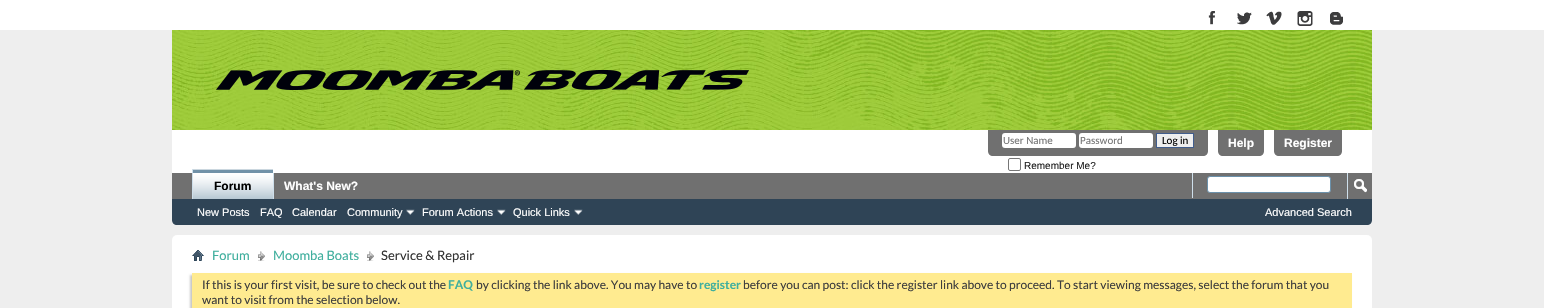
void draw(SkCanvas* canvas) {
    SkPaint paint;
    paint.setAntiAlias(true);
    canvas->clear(0xFFEEEEEE);
    paint.setColor(0xFFFFFFFF);
    canvas->drawRect(SkRect::MakeXYWH(0, 0, 1544, 30), paint);
    canvas->drawImageRect(SkImages::DeferredFromEncodedData(SkData::MakeFromFileName("img1.png")), SkRect::MakeXYWH(1197, 11, 31, 19), SkSamplingOptions());
    canvas->drawImageRect(SkImages::DeferredFromEncodedData(SkData::MakeFromFileName("img2.png")), SkRect::MakeXYWH(1228, 12, 31, 18), SkSamplingOptions());
    canvas->drawImageRect(SkImages::DeferredFromEncodedData(SkData::MakeFromFileName("img3.png")), SkRect::MakeXYWH(1259, 11, 31, 19), SkSamplingOptions());
    canvas->drawImageRect(SkImages::DeferredFromEncodedData(SkData::MakeFromFileName("img4.png")), SkRect::MakeXYWH(1290, 11, 31, 19), SkSamplingOptions());
    canvas->drawImageRect(SkImages::DeferredFromEncodedData(SkData::MakeFromFileName("img5.png")), SkRect::MakeXYWH(1321, 12, 31, 18), SkSamplingOptions());
    canvas->drawImageRect(SkImages::DeferredFromEncodedData(SkData::MakeFromFileName("img6.png")), SkRect::MakeXYWH(172, 30, 1200, 100), SkSamplingOptions());
    canvas->drawImageRect(SkImages::DeferredFromEncodedData(SkData::MakeFromFileName("img7.png")), SkRect::MakeXYWH(216, 70, 533, 20), SkSamplingOptions());
    canvas->drawPath(SkPathBuilder().moveTo(172, 130).lineTo(1372, 130).lineTo(1372, 220).cubicTo(1372, 223, 1370, 225, 1367, 225).lineTo(177, 225).cubicTo(174, 225, 172, 223, 172, 220).close().detach(), paint);
    paint.setColor(0xFF707070);
    canvas->drawPath(SkPathBuilder().moveTo(988, 130).lineTo(1208, 130).lineTo(1208, 151).cubicTo(1208, 154, 1206, 156, 1203, 156).lineTo(993, 156).cubicTo(990, 156, 988, 154, 988, 151).close().detach(), paint);
    paint.setColor(0xFFFFFFFF);
    canvas->drawRoundRect(SkRect::MakeXYWH(1002, 133, 74, 15), 3, 3, paint);
    SkFont font1(fontMgr->matchFamilyStyle("Carlito", SkFontStyle::Normal()), 11);
    font1.setSubpixel(true);
    paint.setColor(0xFF777777);
    canvas->drawString("User Name", 1003, 144, font1, paint);
    paint.setColor(0xFFFFFFFF);
    canvas->drawRoundRect(SkRect::MakeXYWH(1079, 133, 74, 15), 3, 3, paint);
    paint.setColor(0xFF777777);
    canvas->drawString("Password", 1080, 144, font1, paint);
    paint.setColor(0xFFEFEFEF);
    canvas->drawRect(SkRect::MakeXYWH(1156.5f, 133.5f, 37, 14), paint);
    paint.setStyle(SkPaint::kStroke_Style);
    paint.setStrokeWidth(1);
    paint.setColor(0xFF415D8D);
    canvas->drawRect(SkRect::MakeXYWH(1156.5f, 133.5f, 37, 14), paint);
    paint.setStyle(SkPaint::kFill_Style);
    paint.setColor(0xFF000000);
    canvas->drawString("Log in", 1162, 144, font1, paint);
    paint.setStyle(SkPaint::kStroke_Style);
    paint.setColor(0xFF767676);
    canvas->drawRoundRect(SkRect::MakeXYWH(1008.5f, 158.5f, 12, 12), 1.5f, 1.5f, paint);
    SkFont font2(fontMgr->matchFamilyStyle("Liberation Sans", SkFontStyle::Normal()), 10);
    font2.setSubpixel(true);
    paint.setStyle(SkPaint::kFill_Style);
    paint.setColor(0xFF222222);
    canvas->drawString("Remember Me?", 1024, 169, font2, paint);
    paint.setColor(0xFF707070);
    canvas->drawPath(SkPathBuilder().moveTo(1218, 130).lineTo(1264, 130).lineTo(1264, 151).cubicTo(1264, 154, 1262, 156, 1259, 156).lineTo(1223, 156).cubicTo(1220, 156, 1218, 154, 1218, 151).close().detach(), paint);
    SkFont font3(fontMgr->matchFamilyStyle("Liberation Sans", SkFontStyle::Bold()), 12);
    font3.setSubpixel(true);
    paint.setColor(0xFFFFFFFF);
    canvas->drawString("Help", 1228, 147, font3, paint);
    paint.setColor(0xFF707070);
    canvas->drawPath(SkPathBuilder().moveTo(1274, 130).lineTo(1342, 130).lineTo(1342, 151).cubicTo(1342, 154, 1340, 156, 1337, 156).lineTo(1279, 156).cubicTo(1276, 156, 1274, 154, 1274, 151).close().detach(), paint);
    paint.setColor(0xFFFFFFFF);
    canvas->drawString("Register", 1284, 147, font3, paint);
    paint.setColor(0xFF2F4456);
    canvas->drawPath(SkPathBuilder().moveTo(172, 173).lineTo(1372, 173).lineTo(1372, 220).cubicTo(1372, 223, 1370, 225, 1367, 225).lineTo(177, 225).cubicTo(174, 225, 172, 223, 172, 220).close().detach(), paint);
    paint.setColor(0xFF707070);
    canvas->drawRect(SkRect::MakeXYWH(172, 173, 1200, 26), paint);
    paint.setColor(0xFF7192A8);
    canvas->drawRect(SkRect::MakeXYWH(193, 169, 80, 30), paint);
    canvas->drawImageRect(SkImages::DeferredFromEncodedData(SkData::MakeFromFileName("img8.png")), SkRect::MakeXYWH(193, 169, 80, 30), SkSamplingOptions());
    paint.setColor(0xFFCEDFEB);
    canvas->drawRect(SkRect::MakeXYWH(192, 169, 1, 30), paint);
    paint.setColor(0xFF000000);
    canvas->drawString("Forum", 214, 190, font3, paint);
    paint.setColor(0xFFCEDFEB);
    canvas->drawRect(SkRect::MakeXYWH(273, 173, 1, 26), paint);
    paint.setColor(0xFFFFFFFF);
    canvas->drawString("What's New?", 284, 190, font3, paint);
    SkFont font4(fontMgr->matchFamilyStyle("Liberation Sans", SkFontStyle::Normal()), 11);
    font4.setSubpixel(true);
    canvas->drawString("New Posts", 197, 216, font4, paint);
    canvas->drawString("FAQ", 260, 216, font4, paint);
    canvas->drawString("Calendar", 292, 216, font4, paint);
    canvas->drawString("Community", 347, 216, font4, paint);
    canvas->drawImageRect(SkImages::DeferredFromEncodedData(SkData::MakeFromFileName("img9.png")), SkRect::MakeXYWH(406, 209, 9, 6), SkSamplingOptions());
    canvas->drawString("Forum Actions", 422, 216, font4, paint);
    canvas->drawImageRect(SkImages::DeferredFromEncodedData(SkData::MakeFromFileName("img9.png")), SkRect::MakeXYWH(497, 209, 9, 6), SkSamplingOptions());
    canvas->drawString("Quick Links", 513, 216, font4, paint);
    canvas->drawImageRect(SkImages::DeferredFromEncodedData(SkData::MakeFromFileName("img9.png")), SkRect::MakeXYWH(574, 209, 9, 6), SkSamplingOptions());
    paint.setColor(0xFFCEDFEB);
    canvas->drawRect(SkRect::MakeXYWH(1192, 173, 1, 25), paint);
    paint.setColor(0xFFFFFFFF);
    canvas->drawRoundRect(SkRect::MakeXYWH(1207.5f, 176.5f, 123, 16), 2.5f, 2.5f, paint);
    paint.setStyle(SkPaint::kStroke_Style);
    paint.setColor(0xFF6B91AB);
    canvas->drawRoundRect(SkRect::MakeXYWH(1207.5f, 176.5f, 123, 16), 2.5f, 2.5f, paint);
    paint.setStyle(SkPaint::kFill_Style);
    paint.setColor(0xFFCEDFEB);
    canvas->drawRect(SkRect::MakeXYWH(1347, 173, 1, 26), paint);
    canvas->drawImageRect(SkImages::DeferredFromEncodedData(SkData::MakeFromFileName("img10.png")), SkRect::MakeXYWH(1354, 179, 13, 14), SkSamplingOptions());
    paint.setColor(0xFFFFFFFF);
    canvas->drawString("Advanced Search", 1265, 216, font4, paint);
    canvas->drawRoundRect(SkRect::MakeXYWH(172, 235, 1200, 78), 5, 5, paint);
    canvas->drawImageRect(SkImages::DeferredFromEncodedData(SkData::MakeFromFileName("img11.png")), SkRect::MakeXYWH(192, 250, 12, 11), SkSamplingOptions());
    canvas->drawImageRect(SkImages::DeferredFromEncodedData(SkData::MakeFromFileName("img12.png")), SkRect::MakeXYWH(258, 251, 7, 10), SkSamplingOptions());
    SkFont font5(fontMgr->matchFamilyStyle("Lato", SkFontStyle::Normal()), 13);
    font5.setSubpixel(true);
    paint.setColor(0xFF40AF9E);
    canvas->drawString("Forum", 212, 260, font5, paint);
    canvas->drawImageRect(SkImages::DeferredFromEncodedData(SkData::MakeFromFileName("img12.png")), SkRect::MakeXYWH(367, 251, 7, 10), SkSamplingOptions());
    canvas->drawString("Moomba Boats", 273, 260, font5, paint);
    paint.setColor(0xFF333333);
    canvas->drawString("Service & Repair", 381, 260, font5, paint);
    paint.setColor(0xFFC8C8C8);
    paint.setMaskFilter(SkMaskFilter::MakeBlur(kNormal_SkBlurStyle, 1));
    canvas->drawRect(SkRect::MakeXYWH(190, 275, 1160, 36), paint);
    paint.setMaskFilter(nullptr);
    paint.setColor(0xFFFFEB90);
    canvas->drawRect(SkRect::MakeXYWH(192, 273, 1160, 35), paint);
    SkFont font6(fontMgr->matchFamilyStyle("Lato", SkFontStyle::Normal()), 12);
    font6.setSubpixel(true);
    paint.setColor(0xFF3E3E3E);
    canvas->drawString("If this is your first visit, be sure to check out the", 202, 289, font6, paint);
    SkFont font7(fontMgr->matchFamilyStyle("Lato", SkFontStyle::Bold()), 12);
    font7.setSubpixel(true);
    paint.setColor(0xFF40AF9E);
    canvas->drawString("FAQ", 448, 289, font7, paint);
    paint.setColor(0xFF3E3E3E);
    canvas->drawString("by clicking the link above. You may have to", 476, 289, font6, paint);
    paint.setColor(0xFF40AF9E);
    canvas->drawString("register", 699, 289, font7, paint);
    paint.setColor(0xFF3E3E3E);
    canvas->drawString("before you can post: click the register link above to proceed. To start viewing messages, select the forum that you", 743, 289, font6, paint);
    canvas->drawString("want to visit from the selection below.", 202, 304, font6, paint);
}
